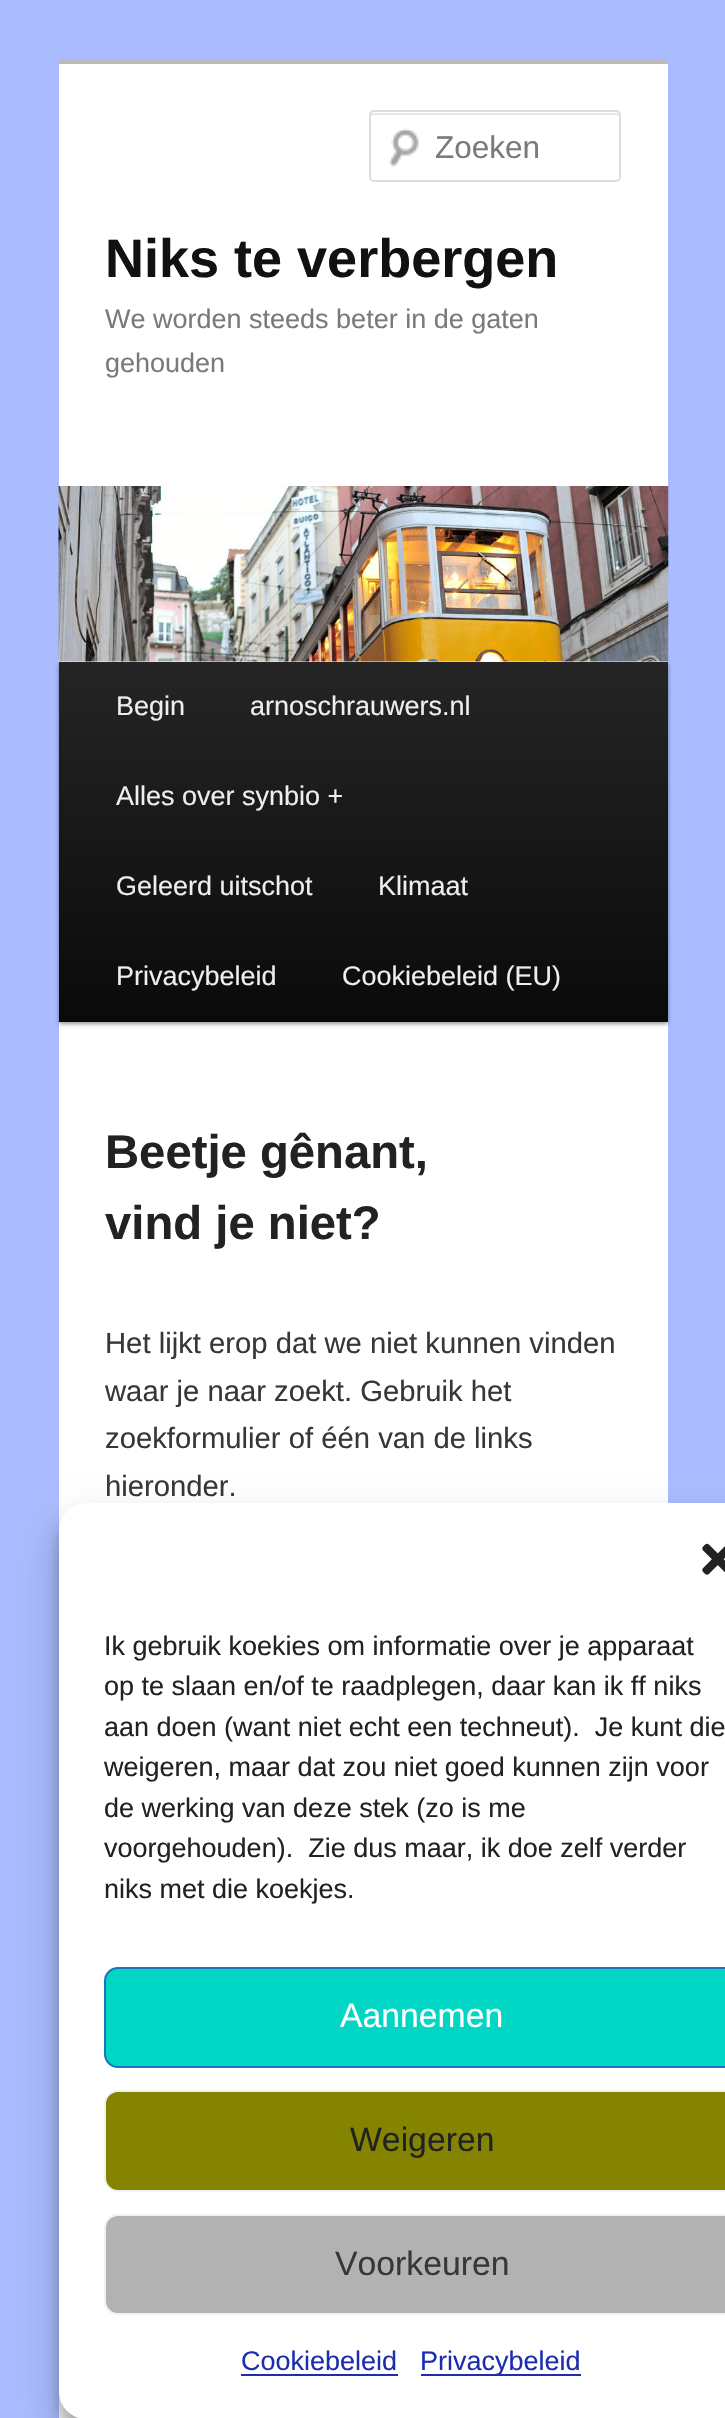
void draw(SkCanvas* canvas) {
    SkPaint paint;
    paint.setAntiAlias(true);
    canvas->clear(0xFFAABBFF);
    paint.setColor(0xFFFFFFFF);
    canvas->drawRect(SkRect::MakeXYWH(59, 64, 609, 2354), paint);
    paint.setColor(0xFFBBBBBB);
    canvas->drawRect(SkRect::MakeXYWH(59, 59, 609, 5), paint);
    canvas->drawImageRect(SkImages::DeferredFromEncodedData(SkData::MakeFromFileName("img1.png")), SkRect::MakeXYWH(389, 128, 30, 39), SkSamplingOptions());
    paint.setColor(0xFFE6E6E6);
    canvas->drawPath(SkPathBuilder().moveTo(374, 115).lineTo(616, 115).cubicTo(618, 115, 619, 116, 619, 117).cubicTo(619, 115, 619, 113, 617, 113).lineTo(373, 113).cubicTo(371, 113, 371, 115, 371, 117).cubicTo(371, 116, 372, 115, 374, 115).close().detach(), paint);
    paint.setStyle(SkPaint::kStroke_Style);
    paint.setStrokeWidth(2);
    paint.setColor(0xFFDDDDDD);
    canvas->drawRoundRect(SkRect::MakeXYWH(370, 111, 250, 70), 4, 4, paint);
    SkFont font1(fontMgr->matchFamilyStyle("Liberation Sans", SkFontStyle::Normal()), 31.5f);
    font1.setSubpixel(true);
    paint.setStyle(SkPaint::kFill_Style);
    paint.setColor(0xFF7A7A7A);
    canvas->drawString("Zoeken", 435, 158, font1, paint);
    SkFont font2(fontMgr->matchFamilyStyle("Liberation Sans", SkFontStyle::Bold()), 54);
    font2.setSubpixel(true);
    paint.setColor(0xFF111111);
    canvas->drawString("Niks te verbergen", 105, 277, font2, paint);
    SkFont font3(fontMgr->matchFamilyStyle("Liberation Sans", SkFontStyle::Normal()), 27);
    font3.setSubpixel(true);
    paint.setColor(0xFF7A7A7A);
    canvas->drawString("We worden steeds beter in de gaten", 105, 328, font3, paint);
    canvas->drawString("gehouden", 105, 372, font3, paint);
    paint.setColor(0x66000000);
    paint.setMaskFilter(SkMaskFilter::MakeBlur(kNormal_SkBlurStyle, 2));
    canvas->drawRect(SkRect::MakeXYWH(59, 664, 609, 360), paint);
    paint.setMaskFilter(nullptr);
    canvas->drawImageRect(SkImages::DeferredFromEncodedData(SkData::MakeFromFileName("img2.png")), SkRect::MakeXYWH(58, 486, 611, 176), SkSamplingOptions());
    {
        const SkColor colors[] = {0xFF252525, 0xFF0A0A0A};
        const float stops[] = {0, 1};
        const SkPoint ends[] = {{363, 662}, {363, 1022}};
        paint.setShader(SkGradientShader::MakeLinear(ends, colors, stops, 2, SkTileMode::kClamp));
        paint.setAlpha(255);
    }
    canvas->drawRect(SkRect::MakeXYWH(59, 662, 609, 360), paint);
    paint.setShader(nullptr);
    paint.setColor(0xFFEEEEEE);
    canvas->drawString("Begin", 116, 715, font3, paint);
    canvas->drawString("arnoschrauwers.nl", 250, 715, font3, paint);
    canvas->drawString("Alles over synbio +", 116, 805, font3, paint);
    canvas->drawString("Geleerd uitschot", 116, 895, font3, paint);
    canvas->drawString("Klimaat", 378, 895, font3, paint);
    canvas->drawString("Privacybeleid", 116, 985, font3, paint);
    canvas->drawString("Cookiebeleid (EU)", 342, 985, font3, paint);
    SkFont font4(fontMgr->matchFamilyStyle("Liberation Sans", SkFontStyle::Bold()), 47.25f);
    font4.setSubpixel(true);
    paint.setColor(0xFF222222);
    canvas->drawString("Beetje gênant,", 105, 1168, font4, paint);
    canvas->drawString("vind je niet?", 105, 1239, font4, paint);
    SkFont font5(fontMgr->matchFamilyStyle("Liberation Sans", SkFontStyle::Normal()), 29.25f);
    font5.setSubpixel(true);
    paint.setColor(0xFF373737);
    canvas->drawString("Het lijkt erop dat we niet kunnen vinden", 105, 1353, font5, paint);
    canvas->drawString("waar je naar zoekt. Gebruik het", 105, 1401, font5, paint);
    canvas->drawString("zoekformulier of één van de links", 105, 1448, font5, paint);
    canvas->drawString("hieronder.", 105, 1496, font5, paint);
    paint.setColor(0x3B000000);
    paint.setMaskFilter(SkMaskFilter::MakeBlur(kNormal_SkBlurStyle, 7));
    canvas->drawRoundRect(SkRect::MakeXYWH(59, 1517, 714, 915), 27, 27, paint);
    paint.setMaskFilter(nullptr);
    paint.setColor(0x30000000);
    paint.setMaskFilter(SkMaskFilter::MakeBlur(kNormal_SkBlurStyle, 22.5f));
    canvas->drawRoundRect(SkRect::MakeXYWH(59, 1526, 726, 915), 27, 27, paint);
    paint.setMaskFilter(nullptr);
    paint.setColor(0xFFFFFFFF);
    canvas->drawRoundRect(SkRect::MakeXYWH(59, 1503, 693, 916), 27, 27, paint);
    canvas->drawImageRect(SkImages::DeferredFromEncodedData(SkData::MakeFromFileName("img3.png")), SkRect::MakeXYWH(702, 1543, 23, 32), SkSamplingOptions());
    paint.setColor(0xFF222222);
    canvas->drawString("Ik gebruik koekies om informatie over je apparaat", 104, 1655, font3, paint);
    canvas->drawString("op te slaan en/of te raadplegen, daar kan ik ff niks", 104, 1695, font3, paint);
    canvas->drawString("aan doen (want niet echt een techneut).  Je kunt die", 104, 1736, font3, paint);
    canvas->save();
    canvas->clipRect(SkRect::MakeXYWH(104, 1627, 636, 295));
    canvas->drawString("weigeren, maar dat zou niet goed kunnen zijn voor", 104, 1776, font3, paint);
    canvas->restore();
    canvas->drawString("de werking van deze stek (zo is me", 104, 1817, font3, paint);
    canvas->drawString("voorgehouden).  Zie dus maar, ik doe zelf verder", 104, 1857, font3, paint);
    canvas->drawString("niks met die koekjes.", 104, 1898, font3, paint);
    paint.setColor(0xFF00D6C4);
    canvas->drawRoundRect(SkRect::MakeXYWH(105, 1968, 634, 99), 13, 13, paint);
    paint.setStyle(SkPaint::kStroke_Style);
    paint.setColor(0xFF1E73BE);
    canvas->drawRoundRect(SkRect::MakeXYWH(105, 1968, 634, 99), 13, 13, paint);
    SkFont font6(fontMgr->matchFamilyStyle("Liberation Sans", SkFontStyle::Normal()), 33.75f);
    font6.setSubpixel(true);
    paint.setStyle(SkPaint::kFill_Style);
    paint.setColor(0xFFFFFFFF);
    canvas->drawString("Aannemen", 340, 2027, font6, paint);
    paint.setColor(0xFF848401);
    canvas->drawRoundRect(SkRect::MakeXYWH(105, 2091, 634, 100), 13, 13, paint);
    paint.setStyle(SkPaint::kStroke_Style);
    paint.setColor(0xFFF2F2F2);
    canvas->drawRoundRect(SkRect::MakeXYWH(105, 2091, 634, 100), 13, 13, paint);
    paint.setStyle(SkPaint::kFill_Style);
    paint.setColor(0xFF222222);
    canvas->drawString("Weigeren", 350, 2151, font6, paint);
    paint.setColor(0xFFB2B2B2);
    canvas->drawRoundRect(SkRect::MakeXYWH(105, 2215, 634, 99), 13, 13, paint);
    paint.setStyle(SkPaint::kStroke_Style);
    paint.setColor(0xFFF2F2F2);
    canvas->drawRoundRect(SkRect::MakeXYWH(105, 2215, 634, 99), 13, 13, paint);
    paint.setStyle(SkPaint::kFill_Style);
    paint.setColor(0xFF373737);
    canvas->drawString("Voorkeuren", 335, 2275, font6, paint);
    paint.setColor(0xFF1C2DAF);
    canvas->drawString("Cookiebeleid", 241, 2370, font3, paint);
    canvas->drawRect(SkRect::MakeXYWH(241, 2374, 157, 2), paint);
    canvas->drawRect(SkRect::MakeXYWH(421, 2374, 160, 2), paint);
    canvas->drawString("Privacybeleid", 420, 2370, font3, paint);
}
